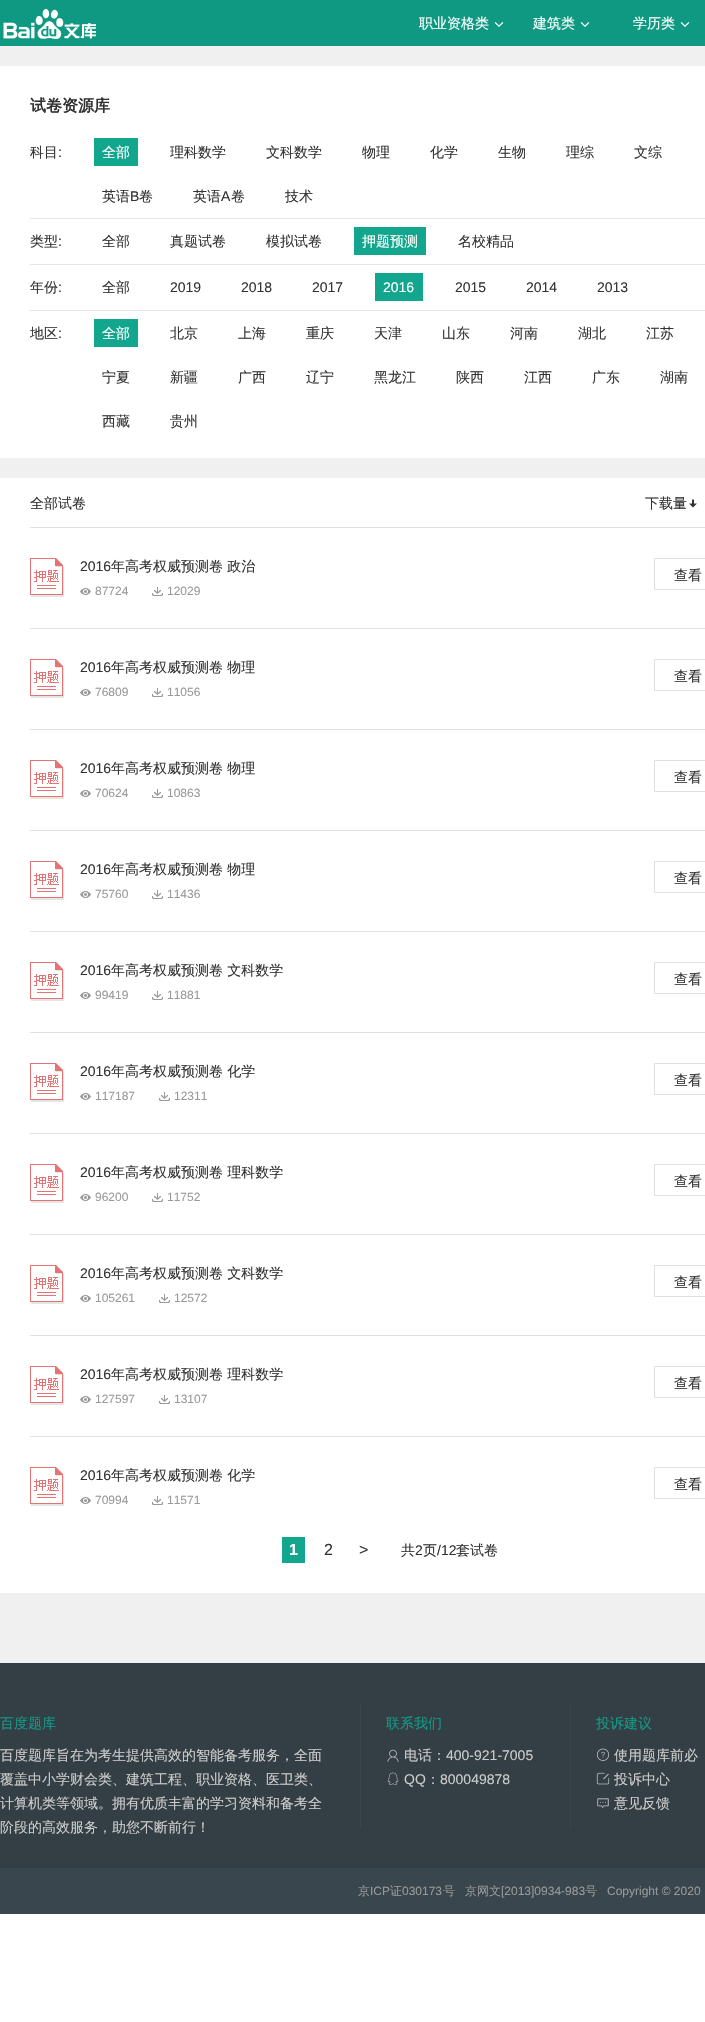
void draw(SkCanvas* canvas) {
    SkPaint paint;
    paint.setAntiAlias(true);
    canvas->clear(0xFFFFFFFF);
    paint.setColor(0xFF0F9982);
    canvas->drawRect(SkRect::MakeXYWH(0, 0, 705, 46), paint);
    canvas->drawImageRect(SkImages::DeferredFromEncodedData(SkData::MakeFromFileName("img1.png")), SkRect::MakeXYWH(3, 9, 93, 30), SkSamplingOptions());
    SkFont font1(fontMgr->matchFamilyStyle("WenQuanYi Zen Hei", SkFontStyle(500, SkFontStyle::kNormal_Width, SkFontStyle::kUpright_Slant)), 14);
    font1.setSubpixel(true);
    paint.setColor(0xFFFFFFFF);
    canvas->drawString("职业资格类", 419, 28, font1, paint);
    canvas->drawImageRect(SkImages::DeferredFromEncodedData(SkData::MakeFromFileName("img2.png")), SkRect::MakeXYWH(494, 22, 10, 5), SkSamplingOptions());
    canvas->drawString("建筑类", 533, 28, font1, paint);
    canvas->drawImageRect(SkImages::DeferredFromEncodedData(SkData::MakeFromFileName("img2.png")), SkRect::MakeXYWH(580, 22, 10, 5), SkSamplingOptions());
    canvas->drawString("学历类", 633, 28, font1, paint);
    canvas->drawImageRect(SkImages::DeferredFromEncodedData(SkData::MakeFromFileName("img2.png")), SkRect::MakeXYWH(680, 22, 10, 5), SkSamplingOptions());
    paint.setColor(0xFFF0F0F0);
    canvas->drawRect(SkRect::MakeXYWH(0, 46, 705, 432), paint);
    paint.setColor(0xFFFFFFFF);
    canvas->drawRect(SkRect::MakeXYWH(0, 66, 705, 392), paint);
    SkFont font2(fontMgr->matchFamilyStyle("WenQuanYi Zen Hei", SkFontStyle::Bold()), 16);
    font2.setSubpixel(true);
    paint.setColor(0xFF333333);
    canvas->drawString("试卷资源库", 30, 111, font2, paint);
    paint.setColor(0xFFE5E5E5);
    canvas->drawRect(SkRect::MakeXYWH(30, 218, 675, 1), paint);
    paint.setColor(0xFF333333);
    canvas->drawString("科目", 30, 157, font1, paint);
    SkFont font3(fontMgr->matchFamilyStyle("Liberation Sans", SkFontStyle::Normal()), 14);
    font3.setSubpixel(true);
    canvas->drawString(":", 58, 157, font3, paint);
    paint.setColor(0xFF11A68D);
    canvas->drawRect(SkRect::MakeXYWH(94, 138, 44, 28), paint);
    paint.setColor(0xFFFFFFFF);
    canvas->drawString("全部", 102, 157, font1, paint);
    paint.setColor(0xFF333333);
    canvas->drawString("理科数学", 170, 157, font1, paint);
    canvas->drawString("文科数学", 266, 157, font1, paint);
    canvas->drawString("物理", 362, 157, font1, paint);
    canvas->drawString("化学", 430, 157, font1, paint);
    canvas->drawString("生物", 498, 157, font1, paint);
    canvas->drawString("理综", 566, 157, font1, paint);
    canvas->drawString("文综", 634, 157, font1, paint);
    canvas->drawString("英语", 102, 201, font1, paint);
    canvas->drawString("B", 130, 201, font3, paint);
    canvas->drawString("卷", 139, 201, font1, paint);
    canvas->drawString("英语", 193, 201, font1, paint);
    canvas->drawString("A", 221, 201, font3, paint);
    canvas->drawString("卷", 231, 201, font1, paint);
    canvas->drawString("技术", 285, 201, font1, paint);
    paint.setColor(0xFFE5E5E5);
    canvas->drawRect(SkRect::MakeXYWH(30, 264, 675, 1), paint);
    paint.setColor(0xFF333333);
    canvas->drawString("类型", 30, 246, font1, paint);
    canvas->drawString(":", 58, 246, font3, paint);
    canvas->drawString("全部", 102, 246, font1, paint);
    canvas->drawString("真题试卷", 170, 246, font1, paint);
    canvas->drawString("模拟试卷", 266, 246, font1, paint);
    paint.setColor(0xFF11A68D);
    canvas->drawRect(SkRect::MakeXYWH(354, 227, 72, 28), paint);
    paint.setColor(0xFFFFFFFF);
    canvas->drawString("押题预测", 362, 246, font1, paint);
    paint.setColor(0xFF333333);
    canvas->drawString("名校精品", 458, 246, font1, paint);
    paint.setColor(0xFFE5E5E5);
    canvas->drawRect(SkRect::MakeXYWH(30, 310, 675, 1), paint);
    paint.setColor(0xFF333333);
    canvas->drawString("年份", 30, 292, font1, paint);
    canvas->drawString(":", 58, 292, font3, paint);
    canvas->drawString("全部", 102, 292, font1, paint);
    canvas->drawString("2019", 170, 292, font3, paint);
    canvas->drawString("2018", 241, 292, font3, paint);
    canvas->drawString("2017", 312, 292, font3, paint);
    paint.setColor(0xFF11A68D);
    canvas->drawRect(SkRect::MakeXYWH(375, 273, 48, 28), paint);
    paint.setColor(0xFFFFFFFF);
    canvas->drawString("2016", 383, 292, font3, paint);
    paint.setColor(0xFF333333);
    canvas->drawString("2015", 455, 292, font3, paint);
    canvas->drawString("2014", 526, 292, font3, paint);
    canvas->drawString("2013", 597, 292, font3, paint);
    canvas->drawString("地区", 30, 338, font1, paint);
    canvas->drawString(":", 58, 338, font3, paint);
    paint.setColor(0xFF11A68D);
    canvas->drawRect(SkRect::MakeXYWH(94, 319, 44, 28), paint);
    paint.setColor(0xFFFFFFFF);
    canvas->drawString("全部", 102, 338, font1, paint);
    paint.setColor(0xFF333333);
    canvas->drawString("北京", 170, 338, font1, paint);
    canvas->drawString("上海", 238, 338, font1, paint);
    canvas->drawString("重庆", 306, 338, font1, paint);
    canvas->drawString("天津", 374, 338, font1, paint);
    canvas->drawString("山东", 442, 338, font1, paint);
    canvas->drawString("河南", 510, 338, font1, paint);
    canvas->drawString("湖北", 578, 338, font1, paint);
    canvas->drawString("江苏", 646, 338, font1, paint);
    canvas->drawString("宁夏", 102, 382, font1, paint);
    canvas->drawString("新疆", 170, 382, font1, paint);
    canvas->drawString("广西", 238, 382, font1, paint);
    canvas->drawString("辽宁", 306, 382, font1, paint);
    canvas->drawString("黑龙江", 374, 382, font1, paint);
    canvas->drawString("陕西", 456, 382, font1, paint);
    canvas->drawString("江西", 524, 382, font1, paint);
    canvas->drawString("广东", 592, 382, font1, paint);
    canvas->drawString("湖南", 660, 382, font1, paint);
    canvas->drawString("西藏", 102, 426, font1, paint);
    canvas->drawString("贵州", 170, 426, font1, paint);
    paint.setColor(0xFFE0E0E0);
    canvas->drawRect(SkRect::MakeXYWH(30, 527, 675, 1), paint);
    paint.setColor(0xFF333333);
    canvas->drawString("全部试卷", 30, 508, font1, paint);
    canvas->drawString("下载量", 645, 508, font1, paint);
    canvas->drawImageRect(SkImages::DeferredFromEncodedData(SkData::MakeFromFileName("img3.png")), SkRect::MakeXYWH(689, 499, 8, 9), SkSamplingOptions());
    canvas->drawImageRect(SkImages::DeferredFromEncodedData(SkData::MakeFromFileName("img4.png")), SkRect::MakeXYWH(30, 558, 34, 39), SkSamplingOptions());
    canvas->drawString("2016", 80, 571, font3, paint);
    canvas->drawString("年高考权威预测卷 政治", 111, 571, font1, paint);
    canvas->drawImageRect(SkImages::DeferredFromEncodedData(SkData::MakeFromFileName("img5.png")), SkRect::MakeXYWH(80, 588, 11, 7), SkSamplingOptions());
    SkFont font4(fontMgr->matchFamilyStyle("Liberation Sans", SkFontStyle::Normal()), 12);
    font4.setSubpixel(true);
    paint.setColor(0xFF999999);
    canvas->drawString("87724", 95, 595, font4, paint);
    canvas->drawImageRect(SkImages::DeferredFromEncodedData(SkData::MakeFromFileName("img6.png")), SkRect::MakeXYWH(152, 587, 11, 9), SkSamplingOptions());
    canvas->drawString("12029", 167, 595, font4, paint);
    paint.setStyle(SkPaint::kStroke_Style);
    paint.setStrokeWidth(1);
    paint.setColor(0xFFE0E0E0);
    canvas->drawRect(SkRect::MakeXYWH(654.5f, 558.5f, 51, 31), paint);
    paint.setStyle(SkPaint::kFill_Style);
    paint.setColor(0xFF333333);
    canvas->drawString("查看", 674, 580, font1, paint);
    paint.setColor(0xFFE0E0E0);
    canvas->drawRect(SkRect::MakeXYWH(30, 628, 675, 1), paint);
    canvas->drawImageRect(SkImages::DeferredFromEncodedData(SkData::MakeFromFileName("img4.png")), SkRect::MakeXYWH(30, 659, 34, 39), SkSamplingOptions());
    paint.setColor(0xFF333333);
    canvas->drawString("2016", 80, 672, font3, paint);
    canvas->drawString("年高考权威预测卷 物理", 111, 672, font1, paint);
    canvas->drawImageRect(SkImages::DeferredFromEncodedData(SkData::MakeFromFileName("img5.png")), SkRect::MakeXYWH(80, 689, 11, 7), SkSamplingOptions());
    paint.setColor(0xFF999999);
    canvas->drawString("76809", 95, 696, font4, paint);
    canvas->drawImageRect(SkImages::DeferredFromEncodedData(SkData::MakeFromFileName("img6.png")), SkRect::MakeXYWH(152, 688, 11, 9), SkSamplingOptions());
    canvas->drawString("11056", 167, 696, font4, paint);
    paint.setStyle(SkPaint::kStroke_Style);
    paint.setColor(0xFFE0E0E0);
    canvas->drawRect(SkRect::MakeXYWH(654.5f, 659.5f, 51, 31), paint);
    paint.setStyle(SkPaint::kFill_Style);
    paint.setColor(0xFF333333);
    canvas->drawString("查看", 674, 681, font1, paint);
    paint.setColor(0xFFE0E0E0);
    canvas->drawRect(SkRect::MakeXYWH(30, 729, 675, 1), paint);
    canvas->drawImageRect(SkImages::DeferredFromEncodedData(SkData::MakeFromFileName("img4.png")), SkRect::MakeXYWH(30, 760, 34, 39), SkSamplingOptions());
    paint.setColor(0xFF333333);
    canvas->drawString("2016", 80, 773, font3, paint);
    canvas->drawString("年高考权威预测卷 物理", 111, 773, font1, paint);
    canvas->drawImageRect(SkImages::DeferredFromEncodedData(SkData::MakeFromFileName("img5.png")), SkRect::MakeXYWH(80, 790, 11, 7), SkSamplingOptions());
    paint.setColor(0xFF999999);
    canvas->drawString("70624", 95, 797, font4, paint);
    canvas->drawImageRect(SkImages::DeferredFromEncodedData(SkData::MakeFromFileName("img6.png")), SkRect::MakeXYWH(152, 789, 11, 9), SkSamplingOptions());
    canvas->drawString("10863", 167, 797, font4, paint);
    paint.setStyle(SkPaint::kStroke_Style);
    paint.setColor(0xFFE0E0E0);
    canvas->drawRect(SkRect::MakeXYWH(654.5f, 760.5f, 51, 31), paint);
    paint.setStyle(SkPaint::kFill_Style);
    paint.setColor(0xFF333333);
    canvas->drawString("查看", 674, 782, font1, paint);
    paint.setColor(0xFFE0E0E0);
    canvas->drawRect(SkRect::MakeXYWH(30, 830, 675, 1), paint);
    canvas->drawImageRect(SkImages::DeferredFromEncodedData(SkData::MakeFromFileName("img4.png")), SkRect::MakeXYWH(30, 861, 34, 39), SkSamplingOptions());
    paint.setColor(0xFF333333);
    canvas->drawString("2016", 80, 874, font3, paint);
    canvas->drawString("年高考权威预测卷 物理", 111, 874, font1, paint);
    canvas->drawImageRect(SkImages::DeferredFromEncodedData(SkData::MakeFromFileName("img5.png")), SkRect::MakeXYWH(80, 891, 11, 7), SkSamplingOptions());
    paint.setColor(0xFF999999);
    canvas->drawString("75760", 95, 898, font4, paint);
    canvas->drawImageRect(SkImages::DeferredFromEncodedData(SkData::MakeFromFileName("img6.png")), SkRect::MakeXYWH(152, 890, 11, 9), SkSamplingOptions());
    canvas->drawString("11436", 167, 898, font4, paint);
    paint.setStyle(SkPaint::kStroke_Style);
    paint.setColor(0xFFE0E0E0);
    canvas->drawRect(SkRect::MakeXYWH(654.5f, 861.5f, 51, 31), paint);
    paint.setStyle(SkPaint::kFill_Style);
    paint.setColor(0xFF333333);
    canvas->drawString("查看", 674, 883, font1, paint);
    paint.setColor(0xFFE0E0E0);
    canvas->drawRect(SkRect::MakeXYWH(30, 931, 675, 1), paint);
    canvas->drawImageRect(SkImages::DeferredFromEncodedData(SkData::MakeFromFileName("img4.png")), SkRect::MakeXYWH(30, 962, 34, 39), SkSamplingOptions());
    paint.setColor(0xFF333333);
    canvas->drawString("2016", 80, 975, font3, paint);
    canvas->drawString("年高考权威预测卷 文科数学", 111, 975, font1, paint);
    canvas->drawImageRect(SkImages::DeferredFromEncodedData(SkData::MakeFromFileName("img5.png")), SkRect::MakeXYWH(80, 992, 11, 7), SkSamplingOptions());
    paint.setColor(0xFF999999);
    canvas->drawString("99419", 95, 999, font4, paint);
    canvas->drawImageRect(SkImages::DeferredFromEncodedData(SkData::MakeFromFileName("img6.png")), SkRect::MakeXYWH(152, 991, 11, 9), SkSamplingOptions());
    canvas->drawString("11881", 167, 999, font4, paint);
    paint.setStyle(SkPaint::kStroke_Style);
    paint.setColor(0xFFE0E0E0);
    canvas->drawRect(SkRect::MakeXYWH(654.5f, 962.5f, 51, 31), paint);
    paint.setStyle(SkPaint::kFill_Style);
    paint.setColor(0xFF333333);
    canvas->drawString("查看", 674, 984, font1, paint);
    paint.setColor(0xFFE0E0E0);
    canvas->drawRect(SkRect::MakeXYWH(30, 1032, 675, 1), paint);
    canvas->drawImageRect(SkImages::DeferredFromEncodedData(SkData::MakeFromFileName("img4.png")), SkRect::MakeXYWH(30, 1063, 34, 39), SkSamplingOptions());
    paint.setColor(0xFF333333);
    canvas->drawString("2016", 80, 1076, font3, paint);
    canvas->drawString("年高考权威预测卷 化学", 111, 1076, font1, paint);
    canvas->drawImageRect(SkImages::DeferredFromEncodedData(SkData::MakeFromFileName("img5.png")), SkRect::MakeXYWH(80, 1093, 11, 7), SkSamplingOptions());
    paint.setColor(0xFF999999);
    canvas->drawString("117187", 95, 1100, font4, paint);
    canvas->drawImageRect(SkImages::DeferredFromEncodedData(SkData::MakeFromFileName("img6.png")), SkRect::MakeXYWH(159, 1092, 11, 9), SkSamplingOptions());
    canvas->drawString("12311", 174, 1100, font4, paint);
    paint.setStyle(SkPaint::kStroke_Style);
    paint.setColor(0xFFE0E0E0);
    canvas->drawRect(SkRect::MakeXYWH(654.5f, 1063.5f, 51, 31), paint);
    paint.setStyle(SkPaint::kFill_Style);
    paint.setColor(0xFF333333);
    canvas->drawString("查看", 674, 1085, font1, paint);
    paint.setColor(0xFFE0E0E0);
    canvas->drawRect(SkRect::MakeXYWH(30, 1133, 675, 1), paint);
    canvas->drawImageRect(SkImages::DeferredFromEncodedData(SkData::MakeFromFileName("img4.png")), SkRect::MakeXYWH(30, 1164, 34, 39), SkSamplingOptions());
    paint.setColor(0xFF333333);
    canvas->drawString("2016", 80, 1177, font3, paint);
    canvas->drawString("年高考权威预测卷 理科数学", 111, 1177, font1, paint);
    canvas->drawImageRect(SkImages::DeferredFromEncodedData(SkData::MakeFromFileName("img5.png")), SkRect::MakeXYWH(80, 1194, 11, 7), SkSamplingOptions());
    paint.setColor(0xFF999999);
    canvas->drawString("96200", 95, 1201, font4, paint);
    canvas->drawImageRect(SkImages::DeferredFromEncodedData(SkData::MakeFromFileName("img6.png")), SkRect::MakeXYWH(152, 1193, 11, 9), SkSamplingOptions());
    canvas->drawString("11752", 167, 1201, font4, paint);
    paint.setStyle(SkPaint::kStroke_Style);
    paint.setColor(0xFFE0E0E0);
    canvas->drawRect(SkRect::MakeXYWH(654.5f, 1164.5f, 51, 31), paint);
    paint.setStyle(SkPaint::kFill_Style);
    paint.setColor(0xFF333333);
    canvas->drawString("查看", 674, 1186, font1, paint);
    paint.setColor(0xFFE0E0E0);
    canvas->drawRect(SkRect::MakeXYWH(30, 1234, 675, 1), paint);
    canvas->drawImageRect(SkImages::DeferredFromEncodedData(SkData::MakeFromFileName("img4.png")), SkRect::MakeXYWH(30, 1265, 34, 39), SkSamplingOptions());
    paint.setColor(0xFF333333);
    canvas->drawString("2016", 80, 1278, font3, paint);
    canvas->drawString("年高考权威预测卷 文科数学", 111, 1278, font1, paint);
    canvas->drawImageRect(SkImages::DeferredFromEncodedData(SkData::MakeFromFileName("img5.png")), SkRect::MakeXYWH(80, 1295, 11, 7), SkSamplingOptions());
    paint.setColor(0xFF999999);
    canvas->drawString("105261", 95, 1302, font4, paint);
    canvas->drawImageRect(SkImages::DeferredFromEncodedData(SkData::MakeFromFileName("img6.png")), SkRect::MakeXYWH(159, 1294, 11, 9), SkSamplingOptions());
    canvas->drawString("12572", 174, 1302, font4, paint);
    paint.setStyle(SkPaint::kStroke_Style);
    paint.setColor(0xFFE0E0E0);
    canvas->drawRect(SkRect::MakeXYWH(654.5f, 1265.5f, 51, 31), paint);
    paint.setStyle(SkPaint::kFill_Style);
    paint.setColor(0xFF333333);
    canvas->drawString("查看", 674, 1287, font1, paint);
    paint.setColor(0xFFE0E0E0);
    canvas->drawRect(SkRect::MakeXYWH(30, 1335, 675, 1), paint);
    canvas->drawImageRect(SkImages::DeferredFromEncodedData(SkData::MakeFromFileName("img4.png")), SkRect::MakeXYWH(30, 1366, 34, 39), SkSamplingOptions());
    paint.setColor(0xFF333333);
    canvas->drawString("2016", 80, 1379, font3, paint);
    canvas->drawString("年高考权威预测卷 理科数学", 111, 1379, font1, paint);
    canvas->drawImageRect(SkImages::DeferredFromEncodedData(SkData::MakeFromFileName("img5.png")), SkRect::MakeXYWH(80, 1396, 11, 7), SkSamplingOptions());
    paint.setColor(0xFF999999);
    canvas->drawString("127597", 95, 1403, font4, paint);
    canvas->drawImageRect(SkImages::DeferredFromEncodedData(SkData::MakeFromFileName("img6.png")), SkRect::MakeXYWH(159, 1395, 11, 9), SkSamplingOptions());
    canvas->drawString("13107", 174, 1403, font4, paint);
    paint.setStyle(SkPaint::kStroke_Style);
    paint.setColor(0xFFE0E0E0);
    canvas->drawRect(SkRect::MakeXYWH(654.5f, 1366.5f, 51, 31), paint);
    paint.setStyle(SkPaint::kFill_Style);
    paint.setColor(0xFF333333);
    canvas->drawString("查看", 674, 1388, font1, paint);
    paint.setColor(0xFFE0E0E0);
    canvas->drawRect(SkRect::MakeXYWH(30, 1436, 675, 1), paint);
    canvas->drawImageRect(SkImages::DeferredFromEncodedData(SkData::MakeFromFileName("img4.png")), SkRect::MakeXYWH(30, 1467, 34, 39), SkSamplingOptions());
    paint.setColor(0xFF333333);
    canvas->drawString("2016", 80, 1480, font3, paint);
    canvas->drawString("年高考权威预测卷 化学", 111, 1480, font1, paint);
    canvas->drawImageRect(SkImages::DeferredFromEncodedData(SkData::MakeFromFileName("img5.png")), SkRect::MakeXYWH(80, 1497, 11, 7), SkSamplingOptions());
    paint.setColor(0xFF999999);
    canvas->drawString("70994", 95, 1504, font4, paint);
    canvas->drawImageRect(SkImages::DeferredFromEncodedData(SkData::MakeFromFileName("img6.png")), SkRect::MakeXYWH(152, 1496, 11, 9), SkSamplingOptions());
    canvas->drawString("11571", 167, 1504, font4, paint);
    paint.setStyle(SkPaint::kStroke_Style);
    paint.setColor(0xFFE0E0E0);
    canvas->drawRect(SkRect::MakeXYWH(654.5f, 1467.5f, 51, 31), paint);
    paint.setStyle(SkPaint::kFill_Style);
    paint.setColor(0xFF333333);
    canvas->drawString("查看", 674, 1489, font1, paint);
    paint.setColor(0xFF11A68D);
    canvas->drawRect(SkRect::MakeXYWH(282, 1537, 23, 26), paint);
    SkFont font5(fontMgr->matchFamilyStyle("Liberation Sans", SkFontStyle::Bold()), 16);
    font5.setSubpixel(true);
    paint.setColor(0xFFFFFFFF);
    canvas->drawString("1", 289, 1555, font5, paint);
    SkFont font6(fontMgr->matchFamilyStyle("Liberation Sans", SkFontStyle::Normal()), 16);
    font6.setSubpixel(true);
    paint.setColor(0xFF333333);
    canvas->drawString("2", 324, 1555, font6, paint);
    canvas->drawString(">", 359, 1555, font6, paint);
    canvas->drawString("共", 401, 1555, font1, paint);
    canvas->drawString("2", 415, 1555, font3, paint);
    canvas->drawString("页", 423, 1555, font1, paint);
    canvas->drawString("/12", 437, 1555, font3, paint);
    canvas->drawString("套试卷", 456, 1555, font1, paint);
    paint.setColor(0xFFF0F0F0);
    canvas->drawRect(SkRect::MakeXYWH(0, 1593, 705, 70), paint);
    paint.setColor(0xFF343F45);
    canvas->drawRect(SkRect::MakeXYWH(0, 1663, 705, 205), paint);
    paint.setColor(0xFF39464D);
    canvas->drawRect(SkRect::MakeXYWH(360, 1703, 1, 125), paint);
    paint.setColor(0xFF149987);
    canvas->drawString("百度题库", 0, 1728, font1, paint);
    paint.setColor(0xFFCCCCCC);
    canvas->drawString("百度题库旨在为考生提供高效的智能备考服务，全面", 0, 1760, font1, paint);
    canvas->drawString("覆盖中小学财会类、建筑工程、职业资格、医卫类、", 0, 1784, font1, paint);
    canvas->drawString("计算机类等领域。拥有优质丰富的学习资料和备考全", 0, 1808, font1, paint);
    canvas->drawString("阶段的高效服务，助您不断前行！", 0, 1832, font1, paint);
    paint.setColor(0xFF39464D);
    canvas->drawRect(SkRect::MakeXYWH(570, 1703, 1, 125), paint);
    paint.setColor(0xFF149987);
    canvas->drawString("联系我们", 386, 1728, font1, paint);
    canvas->drawImageRect(SkImages::DeferredFromEncodedData(SkData::MakeFromFileName("img7.png")), SkRect::MakeXYWH(387, 1749, 12, 13), SkSamplingOptions());
    paint.setColor(0xFFCCCCCC);
    canvas->drawString("电话：", 404, 1760, font1, paint);
    canvas->drawString("400-921-7005", 446, 1760, font3, paint);
    canvas->drawImageRect(SkImages::DeferredFromEncodedData(SkData::MakeFromFileName("img8.png")), SkRect::MakeXYWH(387, 1772, 12, 13), SkSamplingOptions());
    canvas->drawString("QQ", 404, 1784, font3, paint);
    canvas->drawString("：", 426, 1784, font1, paint);
    canvas->drawString("800049878", 440, 1784, font3, paint);
    paint.setColor(0xFF149987);
    canvas->drawString("投诉建议", 596, 1728, font1, paint);
    canvas->drawImageRect(SkImages::DeferredFromEncodedData(SkData::MakeFromFileName("img9.png")), SkRect::MakeXYWH(596, 1748, 14, 13), SkSamplingOptions());
    paint.setColor(0xFFCCCCCC);
    canvas->drawString("使用题库前必", 614, 1760, font1, paint);
    canvas->drawImageRect(SkImages::DeferredFromEncodedData(SkData::MakeFromFileName("img10.png")), SkRect::MakeXYWH(596, 1772, 14, 13), SkSamplingOptions());
    canvas->drawString("投诉中心", 614, 1784, font1, paint);
    canvas->drawImageRect(SkImages::DeferredFromEncodedData(SkData::MakeFromFileName("img11.png")), SkRect::MakeXYWH(597, 1798, 12, 10), SkSamplingOptions());
    canvas->drawString("意见反馈", 614, 1808, font1, paint);
    paint.setColor(0xFF39464D);
    canvas->drawRect(SkRect::MakeXYWH(0, 1868, 705, 46), paint);
    SkFont font7(fontMgr->matchFamilyStyle("WenQuanYi Zen Hei", SkFontStyle(500, SkFontStyle::kNormal_Width, SkFontStyle::kUpright_Slant)), 12);
    font7.setSubpixel(true);
    paint.setColor(0xFF999999);
    canvas->drawString("京", 358, 1895, font7, paint);
    canvas->drawString("ICP", 370, 1895, font4, paint);
    canvas->drawString("证", 390, 1895, font7, paint);
    canvas->drawString("030173", 402, 1895, font4, paint);
    canvas->drawString("号", 443, 1895, font7, paint);
    canvas->drawString("京网文", 465, 1895, font7, paint);
    canvas->drawString("[2013]0934-983", 501, 1895, font4, paint);
    canvas->drawString("号", 585, 1895, font7, paint);
    canvas->drawString("Copyright © 2020", 607, 1895, font4, paint);
}
